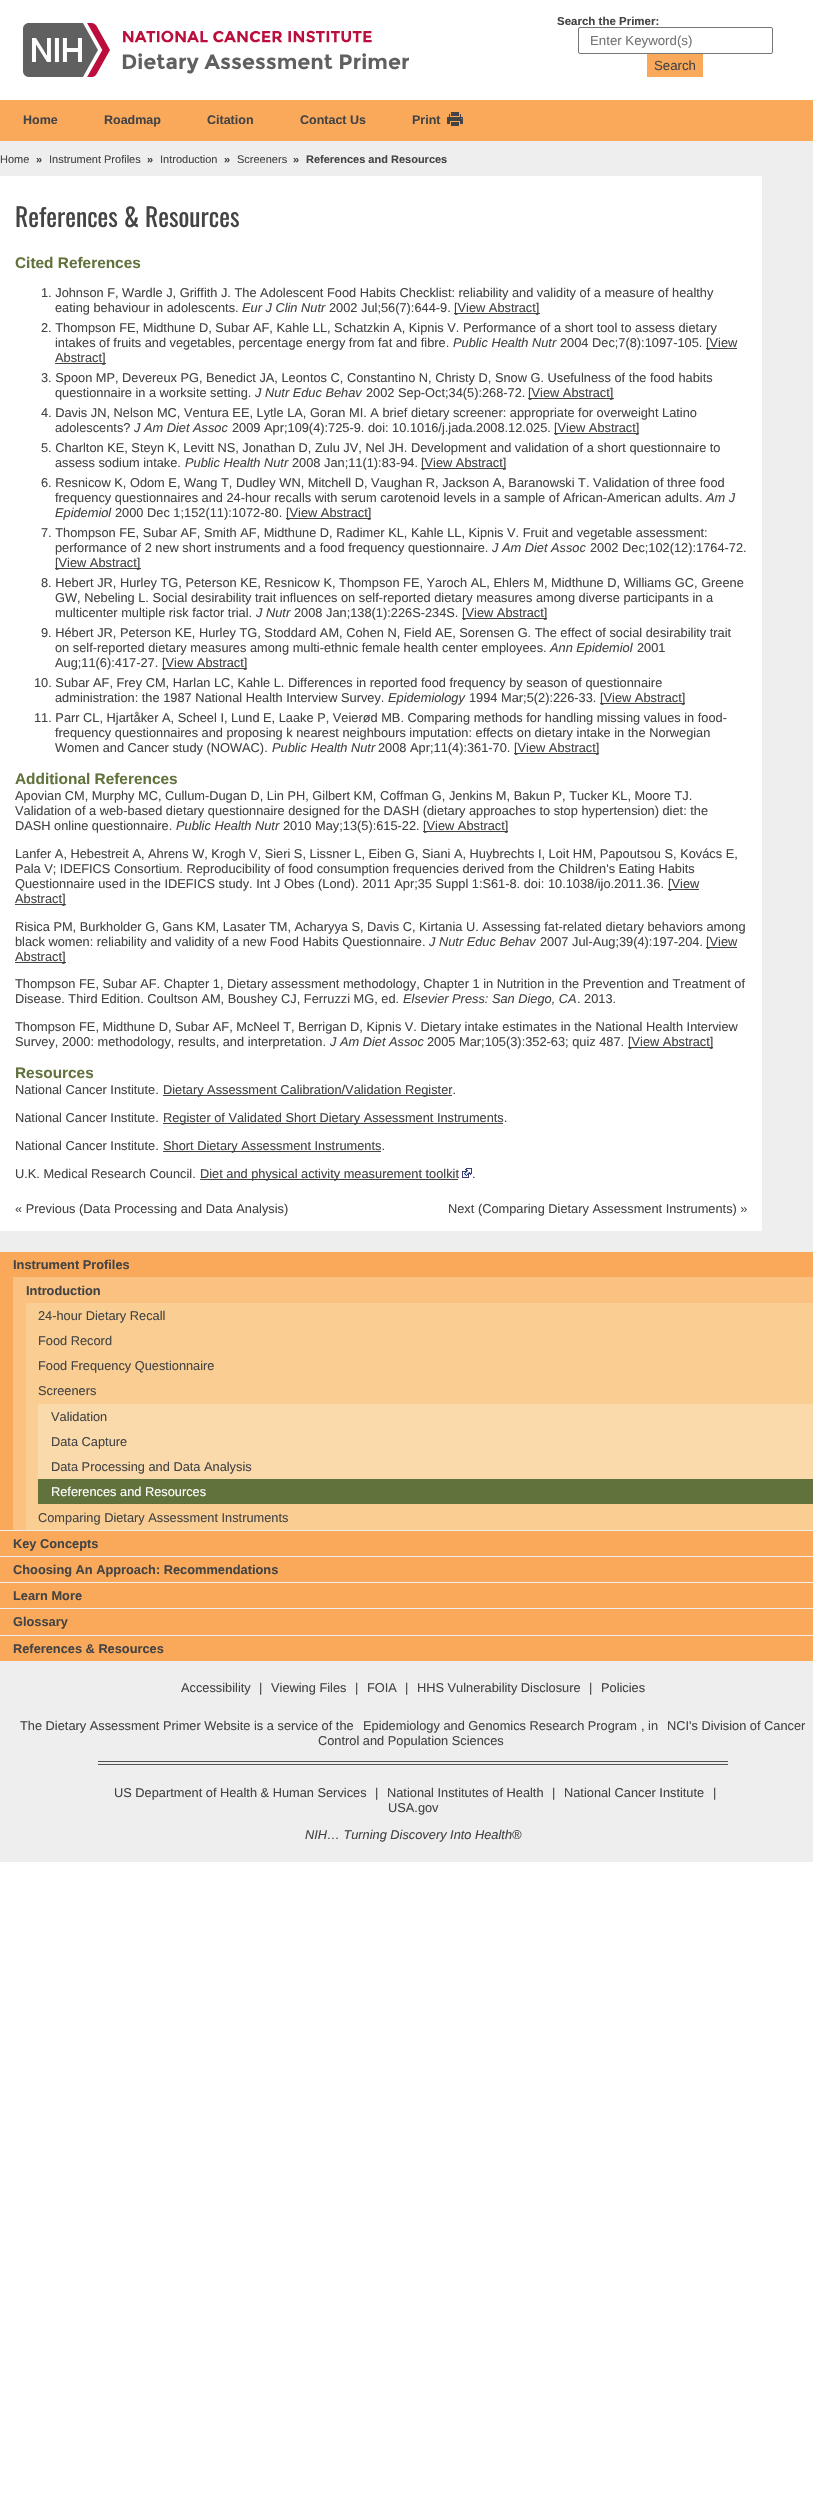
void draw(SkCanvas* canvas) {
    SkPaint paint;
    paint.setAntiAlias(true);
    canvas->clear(0xFFFFFFFF);
    canvas->drawImageRect(SkImages::DeferredFromEncodedData(SkData::MakeFromFileName("img1.png")), SkRect::MakeXYWH(23, 23, 386, 54), SkSamplingOptions());
    SkFont font1(fontMgr->matchFamilyStyle("Liberation Sans", SkFontStyle::Bold()), 11.5f);
    font1.setSubpixel(true);
    paint.setColor(0xFF444444);
    canvas->drawString("Search the Primer:", 557, 25, font1, paint);
    paint.setStyle(SkPaint::kStroke_Style);
    paint.setStrokeWidth(1);
    paint.setColor(0xFF767676);
    canvas->drawRoundRect(SkRect::MakeXYWH(578.5f, 27.5f, 194, 26), 1.5f, 1.5f, paint);
    SkFont font2(fontMgr->matchFamilyStyle("Liberation Sans", SkFontStyle::Normal()), 13.25f);
    font2.setSubpixel(true);
    paint.setStyle(SkPaint::kFill_Style);
    paint.setColor(0xFF757575);
    canvas->drawString("Enter Keyword(s)", 590, 45, font2, paint);
    paint.setColor(0xFFFAA95A);
    canvas->drawRect(SkRect::MakeXYWH(647, 54, 56, 23), paint);
    paint.setColor(0xFF444444);
    canvas->drawString("Search", 654, 70, font2, paint);
    paint.setColor(0xFFEEEEEE);
    canvas->drawRect(SkRect::MakeXYWH(0, 141, 813, 1721), paint);
    paint.setColor(0xFFFAA95A);
    canvas->drawRect(SkRect::MakeXYWH(0, 100, 813, 41), paint);
    SkFont font3(fontMgr->matchFamilyStyle("Liberation Sans", SkFontStyle::Bold()), 12.5f);
    font3.setSubpixel(true);
    paint.setColor(0xFF444444);
    canvas->drawString("Home", 23, 124, font3, paint);
    canvas->drawString("Roadmap", 104, 124, font3, paint);
    canvas->drawString("Citation", 207, 124, font3, paint);
    canvas->drawString("Contact Us", 300, 124, font3, paint);
    canvas->drawString("Print", 412, 124, font3, paint);
    canvas->drawImageRect(SkImages::DeferredFromEncodedData(SkData::MakeFromFileName("img2.png")), SkRect::MakeXYWH(447, 112, 16, 14), SkSamplingOptions());
    SkFont font4(fontMgr->matchFamilyStyle("Liberation Sans", SkFontStyle::Normal()), 11);
    font4.setSubpixel(true);
    canvas->drawString("Home", 0, 163, font4, paint);
    SkFont font5(fontMgr->matchFamilyStyle("Liberation Sans", SkFontStyle::Bold()), 11);
    font5.setSubpixel(true);
    canvas->drawString("»", 36, 163, font5, paint);
    canvas->drawString("Instrument Profiles", 49, 163, font4, paint);
    canvas->drawString("»", 147, 163, font5, paint);
    canvas->drawString("Introduction", 160, 163, font4, paint);
    canvas->drawString("»", 224, 163, font5, paint);
    canvas->drawString("Screeners", 237, 163, font4, paint);
    canvas->drawString("»", 293, 163, font5, paint);
    canvas->drawString("References and Resources", 306, 163, font5, paint);
    paint.setColor(0xFFFFFFFF);
    canvas->drawRect(SkRect::MakeXYWH(0, 176, 762, 1055), paint);
    SkFont font6(fontMgr->matchFamilyStyle("Oswald", SkFontStyle::Normal()), 25.5f);
    font6.setSubpixel(true);
    paint.setColor(0xFF444444);
    canvas->drawString("References & Resources", 15, 227, font6, paint);
    SkFont font7(fontMgr->matchFamilyStyle("Liberation Sans", SkFontStyle::Bold()), 15.4f);
    font7.setSubpixel(true);
    paint.setColor(0xFF61723C);
    canvas->drawString("Cited References", 15, 268, font7, paint);
    SkFont font8(fontMgr->matchFamilyStyle("Liberation Sans", SkFontStyle::Normal()), 12.8f);
    font8.setSubpixel(true);
    paint.setColor(0xFF444444);
    canvas->drawString("1. Johnson F, Wardle J, Griffith J. The Adolescent Food Habits Checklist: reliability and validity of a measure of healthy", 41, 297, font8, paint);
    canvas->drawString("eating behaviour in adolescents.", 55, 312, font8, paint);
    SkFont font9(fontMgr->matchFamilyStyle("Liberation Sans", SkFontStyle::Italic()), 12.8f);
    font9.setSubpixel(true);
    canvas->drawString("Eur J Clin Nutr", 242, 312, font9, paint);
    canvas->drawString("2002 Jul;56(7):644-9.", 329, 312, font8, paint);
    canvas->drawRect(SkRect::MakeXYWH(454, 313, 86, 1), paint);
    canvas->drawString("[View Abstract]", 454, 312, font8, paint);
    canvas->drawString("2. Thompson FE, Midthune D, Subar AF, Kahle LL, Schatzkin A, Kipnis V. Performance of a short tool to assess dietary", 41, 332, font8, paint);
    canvas->drawString("intakes of fruits and vegetables, percentage energy from fat and fibre.", 55, 347, font8, paint);
    canvas->drawString("Public Health Nutr", 453, 347, font9, paint);
    canvas->drawString("2004 Dec;7(8):1097-105.", 560, 347, font8, paint);
    canvas->drawRect(SkRect::MakeXYWH(706, 348, 31, 1), paint);
    canvas->drawString("[View", 706, 347, font8, paint);
    canvas->drawRect(SkRect::MakeXYWH(55, 363, 51, 1), paint);
    canvas->drawString("Abstract]", 55, 362, font8, paint);
    canvas->drawString("3. Spoon MP, Devereux PG, Benedict JA, Leontos C, Constantino N, Christy D, Snow G. Usefulness of the food habits", 41, 382, font8, paint);
    canvas->drawString("questionnaire in a worksite setting.", 55, 397, font8, paint);
    canvas->drawString("J Nutr Educ Behav", 255, 397, font9, paint);
    canvas->drawString("2002 Sep-Oct;34(5):268-72.", 366, 397, font8, paint);
    canvas->drawRect(SkRect::MakeXYWH(528, 398, 86, 1), paint);
    canvas->drawString("[View Abstract]", 528, 397, font8, paint);
    canvas->drawString("4. Davis JN, Nelson MC, Ventura EE, Lytle LA, Goran MI. A brief dietary screener: appropriate for overweight Latino", 41, 417, font8, paint);
    canvas->drawString("adolescents?", 55, 432, font8, paint);
    canvas->drawString("J Am Diet Assoc", 134, 432, font9, paint);
    canvas->drawString("2009 Apr;109(4):725-9. doi: 10.1016/j.jada.2008.12.025.", 232, 432, font8, paint);
    canvas->drawRect(SkRect::MakeXYWH(554, 433, 85, 1), paint);
    canvas->drawString("[View Abstract]", 554, 432, font8, paint);
    canvas->drawString("5. Charlton KE, Steyn K, Levitt NS, Jonathan D, Zulu JV, Nel JH. Development and validation of a short questionnaire to", 41, 452, font8, paint);
    canvas->drawString("assess sodium intake.", 55, 467, font8, paint);
    canvas->drawString("Public Health Nutr", 185, 467, font9, paint);
    canvas->drawString("2008 Jan;11(1):83-94.", 292, 467, font8, paint);
    canvas->drawRect(SkRect::MakeXYWH(421, 468, 85, 1), paint);
    canvas->drawString("[View Abstract]", 421, 467, font8, paint);
    canvas->drawString("6. Resnicow K, Odom E, Wang T, Dudley WN, Mitchell D, Vaughan R, Jackson A, Baranowski T. Validation of three food", 41, 487, font8, paint);
    canvas->drawString("frequency questionnaires and 24-hour recalls with serum carotenoid levels in a sample of African-American adults.", 55, 502, font8, paint);
    canvas->drawString("Am J", 706, 502, font9, paint);
    canvas->drawString("Epidemiol", 55, 517, font9, paint);
    canvas->drawString("2000 Dec 1;152(11):1072-80.", 115, 517, font8, paint);
    canvas->drawRect(SkRect::MakeXYWH(286, 518, 85, 1), paint);
    canvas->drawString("[View Abstract]", 286, 517, font8, paint);
    canvas->drawString("7. Thompson FE, Subar AF, Smith AF, Midthune D, Radimer KL, Kahle LL, Kipnis V. Fruit and vegetable assessment:", 41, 537, font8, paint);
    canvas->drawString("performance of 2 new short instruments and a food frequency questionnaire.", 55, 552, font8, paint);
    canvas->drawString("J Am Diet Assoc", 492, 552, font9, paint);
    canvas->drawString("2002 Dec;102(12):1764-72.", 590, 552, font8, paint);
    canvas->drawRect(SkRect::MakeXYWH(55, 568, 86, 1), paint);
    canvas->drawString("[View Abstract]", 55, 567, font8, paint);
    canvas->drawString("8. Hebert JR, Hurley TG, Peterson KE, Resnicow K, Thompson FE, Yaroch AL, Ehlers M, Midthune D, Williams GC, Greene", 41, 587, font8, paint);
    canvas->drawString("GW, Nebeling L. Social desirability trait influences on self-reported dietary measures among diverse participants in a", 55, 602, font8, paint);
    canvas->drawString("multicenter multiple risk factor trial.", 55, 617, font8, paint);
    canvas->drawString("J Nutr", 256, 617, font9, paint);
    canvas->drawString("2008 Jan;138(1):226S-234S.", 294, 617, font8, paint);
    canvas->drawRect(SkRect::MakeXYWH(462, 618, 85, 1), paint);
    canvas->drawString("[View Abstract]", 462, 617, font8, paint);
    canvas->drawString("9. Hébert JR, Peterson KE, Hurley TG, Stoddard AM, Cohen N, Field AE, Sorensen G. The effect of social desirability trait", 41, 637, font8, paint);
    canvas->drawString("on self-reported dietary measures among multi-ethnic female health center employees.", 55, 652, font8, paint);
    canvas->drawString("Ann Epidemiol", 550, 652, font9, paint);
    canvas->drawString("2001", 637, 652, font8, paint);
    canvas->drawString("Aug;11(6):417-27.", 55, 667, font8, paint);
    canvas->drawRect(SkRect::MakeXYWH(162, 668, 85, 1), paint);
    canvas->drawString("[View Abstract]", 162, 667, font8, paint);
    canvas->drawString("10. Subar AF, Frey CM, Harlan LC, Kahle L. Differences in reported food frequency by season of questionnaire", 34, 687, font8, paint);
    canvas->drawString("administration: the 1987 National Health Interview Survey.", 55, 702, font8, paint);
    canvas->drawString("Epidemiology", 388, 702, font9, paint);
    canvas->drawString("1994 Mar;5(2):226-33.", 469, 702, font8, paint);
    canvas->drawRect(SkRect::MakeXYWH(600, 703, 85, 1), paint);
    canvas->drawString("[View Abstract]", 600, 702, font8, paint);
    canvas->drawString("11. Parr CL, Hjartåker A, Scheel I, Lund E, Laake P, Veierød MB. Comparing methods for handling missing values in food-", 34, 722, font8, paint);
    canvas->drawString("frequency questionnaires and proposing k nearest neighbours imputation: effects on dietary intake in the Norwegian", 55, 737, font8, paint);
    canvas->drawString("Women and Cancer study (NOWAC).", 55, 752, font8, paint);
    canvas->drawString("Public Health Nutr", 272, 752, font9, paint);
    canvas->drawString("2008 Apr;11(4):361-70.", 378, 752, font8, paint);
    canvas->drawRect(SkRect::MakeXYWH(514, 753, 85, 1), paint);
    canvas->drawString("[View Abstract]", 514, 752, font8, paint);
    paint.setColor(0xFF61723C);
    canvas->drawString("Additional References", 15, 784, font7, paint);
    paint.setColor(0xFF444444);
    canvas->drawString("Apovian CM, Murphy MC, Cullum-Dugan D, Lin PH, Gilbert KM, Coffman G, Jenkins M, Bakun P, Tucker KL, Moore TJ.", 15, 800, font8, paint);
    canvas->drawString("Validation of a web-based dietary questionnaire designed for the DASH (dietary approaches to stop hypertension) diet: the", 15, 815, font8, paint);
    canvas->drawString("DASH online questionnaire.", 15, 830, font8, paint);
    canvas->drawString("Public Health Nutr", 176, 830, font9, paint);
    canvas->drawString("2010 May;13(5):615-22.", 283, 830, font8, paint);
    canvas->drawRect(SkRect::MakeXYWH(423, 831, 85, 1), paint);
    canvas->drawString("[View Abstract]", 423, 830, font8, paint);
    canvas->drawString("Lanfer A, Hebestreit A, Ahrens W, Krogh V, Sieri S, Lissner L, Eiben G, Siani A, Huybrechts I, Loit HM, Papoutsou S, Kovács E,", 15, 858, font8, paint);
    canvas->drawString("Pala V; IDEFICS Consortium. Reproducibility of food consumption frequencies derived from the Children's Eating Habits", 15, 873, font8, paint);
    canvas->drawString("Questionnaire used in the IDEFICS study. Int J Obes (Lond). 2011 Apr;35 Suppl 1:S61-8. doi: 10.1038/ijo.2011.36.", 15, 888, font8, paint);
    canvas->drawRect(SkRect::MakeXYWH(668, 889, 31, 1), paint);
    canvas->drawString("[View", 668, 888, font8, paint);
    canvas->drawRect(SkRect::MakeXYWH(15, 904, 51, 1), paint);
    canvas->drawString("Abstract]", 15, 903, font8, paint);
    canvas->drawString("Risica PM, Burkholder G, Gans KM, Lasater TM, Acharyya S, Davis C, Kirtania U. Assessing fat-related dietary behaviors among", 15, 931, font8, paint);
    canvas->drawString("black women: reliability and validity of a new Food Habits Questionnaire.", 15, 946, font8, paint);
    canvas->drawString("J Nutr Educ Behav", 429, 946, font9, paint);
    canvas->drawString("2007 Jul-Aug;39(4):197-204.", 540, 946, font8, paint);
    canvas->drawRect(SkRect::MakeXYWH(706, 947, 31, 1), paint);
    canvas->drawString("[View", 706, 946, font8, paint);
    canvas->drawRect(SkRect::MakeXYWH(15, 962, 51, 1), paint);
    canvas->drawString("Abstract]", 15, 961, font8, paint);
    canvas->drawString("Thompson FE, Subar AF. Chapter 1, Dietary assessment methodology, Chapter 1 in Nutrition in the Prevention and Treatment of", 15, 988, font8, paint);
    canvas->drawString("Disease. Third Edition. Coultson AM, Boushey CJ, Ferruzzi MG, ed.", 15, 1003, font8, paint);
    canvas->drawString("Elsevier Press: San Diego, CA", 403, 1003, font9, paint);
    canvas->drawString(". 2013.", 577, 1003, font8, paint);
    canvas->drawString("Thompson FE, Midthune D, Subar AF, McNeel T, Berrigan D, Kipnis V. Dietary intake estimates in the National Health Interview", 15, 1031, font8, paint);
    canvas->drawString("Survey, 2000: methodology, results, and interpretation.", 15, 1046, font8, paint);
    canvas->drawString("J Am Diet Assoc", 330, 1046, font9, paint);
    canvas->drawString("2005 Mar;105(3):352-63; quiz 487.", 427, 1046, font8, paint);
    canvas->drawRect(SkRect::MakeXYWH(628, 1047, 85, 1), paint);
    canvas->drawString("[View Abstract]", 628, 1046, font8, paint);
    paint.setColor(0xFF61723C);
    canvas->drawString("Resources", 15, 1078, font7, paint);
    paint.setColor(0xFF444444);
    canvas->drawString("National Cancer Institute.", 15, 1094, font8, paint);
    canvas->drawRect(SkRect::MakeXYWH(163, 1095, 289, 1), paint);
    canvas->drawString("Dietary Assessment Calibration/Validation Register.", 163, 1094, font8, paint);
    canvas->drawString("National Cancer Institute.", 15, 1122, font8, paint);
    canvas->drawRect(SkRect::MakeXYWH(163, 1123, 340, 1), paint);
    canvas->drawString("Register of Validated Short Dietary Assessment Instruments.", 163, 1122, font8, paint);
    canvas->drawString("National Cancer Institute.", 15, 1150, font8, paint);
    canvas->drawRect(SkRect::MakeXYWH(163, 1151, 218, 1), paint);
    canvas->drawString("Short Dietary Assessment Instruments.", 163, 1150, font8, paint);
    canvas->drawString("U.K. Medical Research Council.", 15, 1178, font8, paint);
    canvas->drawRect(SkRect::MakeXYWH(200, 1179, 258, 1), paint);
    canvas->drawString("Diet and physical activity measurement toolkit", 200, 1178, font8, paint);
    canvas->drawImageRect(SkImages::DeferredFromEncodedData(SkData::MakeFromFileName("img3.png")), SkRect::MakeXYWH(462, 1168, 10, 10), SkSamplingOptions());
    canvas->drawString(".", 472, 1178, font8, paint);
    canvas->drawString("« Previous (Data Processing and Data Analysis)", 15, 1213, font8, paint);
    canvas->drawString("Next (Comparing Dietary Assessment Instruments) »", 448, 1213, font8, paint);
    paint.setColor(0xFFFAA95A);
    canvas->drawRect(SkRect::MakeXYWH(0, 1252, 813, 25), paint);
    SkFont font10(fontMgr->matchFamilyStyle("Liberation Sans", SkFontStyle::Bold()), 12.8f);
    font10.setSubpixel(true);
    paint.setColor(0xFF444444);
    canvas->drawString("Instrument Profiles", 13, 1269, font10, paint);
    paint.setColor(0xFFFAA95A);
    canvas->drawRect(SkRect::MakeXYWH(0, 1277, 13, 253), paint);
    paint.setColor(0xFFFAC181);
    canvas->drawRect(SkRect::MakeXYWH(13, 1277, 800, 253), paint);
    paint.setColor(0xFF444444);
    canvas->drawString("Introduction", 26, 1295, font10, paint);
    paint.setColor(0xFFFACE92);
    canvas->drawRect(SkRect::MakeXYWH(26, 1303, 787, 101), paint);
    paint.setColor(0xFF444444);
    canvas->drawString("24-hour Dietary Recall", 38, 1320, font8, paint);
    canvas->drawString("Food Record", 38, 1345, font8, paint);
    canvas->drawString("Food Frequency Questionnaire", 38, 1370, font8, paint);
    canvas->drawString("Screeners", 38, 1395, font8, paint);
    paint.setColor(0xFFFACE92);
    canvas->drawRect(SkRect::MakeXYWH(26, 1404, 12, 100), paint);
    paint.setColor(0xFFFADAAB);
    canvas->drawRect(SkRect::MakeXYWH(38, 1404, 775, 75), paint);
    paint.setColor(0xFF444444);
    canvas->drawString("Validation", 51, 1421, font8, paint);
    canvas->drawString("Data Capture", 51, 1446, font8, paint);
    canvas->drawString("Data Processing and Data Analysis", 51, 1471, font8, paint);
    paint.setColor(0xFF61723C);
    canvas->drawRect(SkRect::MakeXYWH(38, 1479, 775, 25), paint);
    paint.setColor(0xFFFFFFFF);
    canvas->drawString("References and Resources", 51, 1496, font8, paint);
    paint.setColor(0xFFFACE92);
    canvas->drawRect(SkRect::MakeXYWH(26, 1504, 787, 26), paint);
    paint.setColor(0xFF444444);
    canvas->drawString("Comparing Dietary Assessment Instruments", 38, 1522, font8, paint);
    paint.setColor(0xFFFAA95A);
    canvas->drawRect(SkRect::MakeXYWH(0, 1531, 813, 25), paint);
    paint.setColor(0xFF444444);
    canvas->drawString("Key Concepts", 13, 1548, font10, paint);
    paint.setColor(0xFFFAA95A);
    canvas->drawRect(SkRect::MakeXYWH(0, 1557, 813, 25), paint);
    paint.setColor(0xFF444444);
    canvas->drawString("Choosing An Approach: Recommendations", 13, 1574, font10, paint);
    paint.setColor(0xFFFAA95A);
    canvas->drawRect(SkRect::MakeXYWH(0, 1583, 813, 25), paint);
    paint.setColor(0xFF444444);
    canvas->drawString("Learn More", 13, 1600, font10, paint);
    paint.setColor(0xFFFAA95A);
    canvas->drawRect(SkRect::MakeXYWH(0, 1609, 813, 26), paint);
    paint.setColor(0xFF444444);
    canvas->drawString("Glossary", 13, 1626, font10, paint);
    paint.setColor(0xFFFAA95A);
    canvas->drawRect(SkRect::MakeXYWH(0, 1636, 813, 25), paint);
    paint.setColor(0xFF444444);
    canvas->drawString("References & Resources", 13, 1653, font10, paint);
    canvas->drawString("Accessibility", 181, 1692, font8, paint);
    canvas->drawString("|", 259, 1692, font8, paint);
    canvas->drawString("Viewing Files", 271, 1692, font8, paint);
    canvas->drawString("|", 355, 1692, font8, paint);
    canvas->drawString("FOIA", 367, 1692, font8, paint);
    canvas->drawString("|", 405, 1692, font8, paint);
    canvas->drawString("HHS Vulnerability Disclosure", 417, 1692, font8, paint);
    canvas->drawString("|", 589, 1692, font8, paint);
    canvas->drawString("Policies", 601, 1692, font8, paint);
    canvas->drawString("The Dietary Assessment Primer Website is a service of the", 20, 1730, font8, paint);
    canvas->drawString("Epidemiology and Genomics Research Program", 363, 1730, font8, paint);
    canvas->drawString(", in", 641, 1730, font8, paint);
    canvas->drawString("NCI's Division of Cancer", 667, 1730, font8, paint);
    canvas->drawString("Control and Population Sciences", 318, 1745, font8, paint);
    paint.setColor(0xFF525252);
    canvas->drawRect(SkRect::MakeXYWH(98, 1761, 630, 1), paint);
    canvas->drawRect(SkRect::MakeXYWH(98, 1764, 630, 1), paint);
    paint.setColor(0xFF444444);
    canvas->drawString("US Department of Health & Human Services", 114, 1797, font8, paint);
    canvas->drawString("|", 375, 1797, font8, paint);
    canvas->drawString("National Institutes of Health", 387, 1797, font8, paint);
    canvas->drawString("|", 552, 1797, font8, paint);
    canvas->drawString("National Cancer Institute", 564, 1797, font8, paint);
    canvas->drawString("|", 713, 1797, font8, paint);
    canvas->drawString("USA.gov", 388, 1812, font8, paint);
    canvas->drawString("NIH… Turning Discovery Into Health®", 305, 1839, font9, paint);
}
